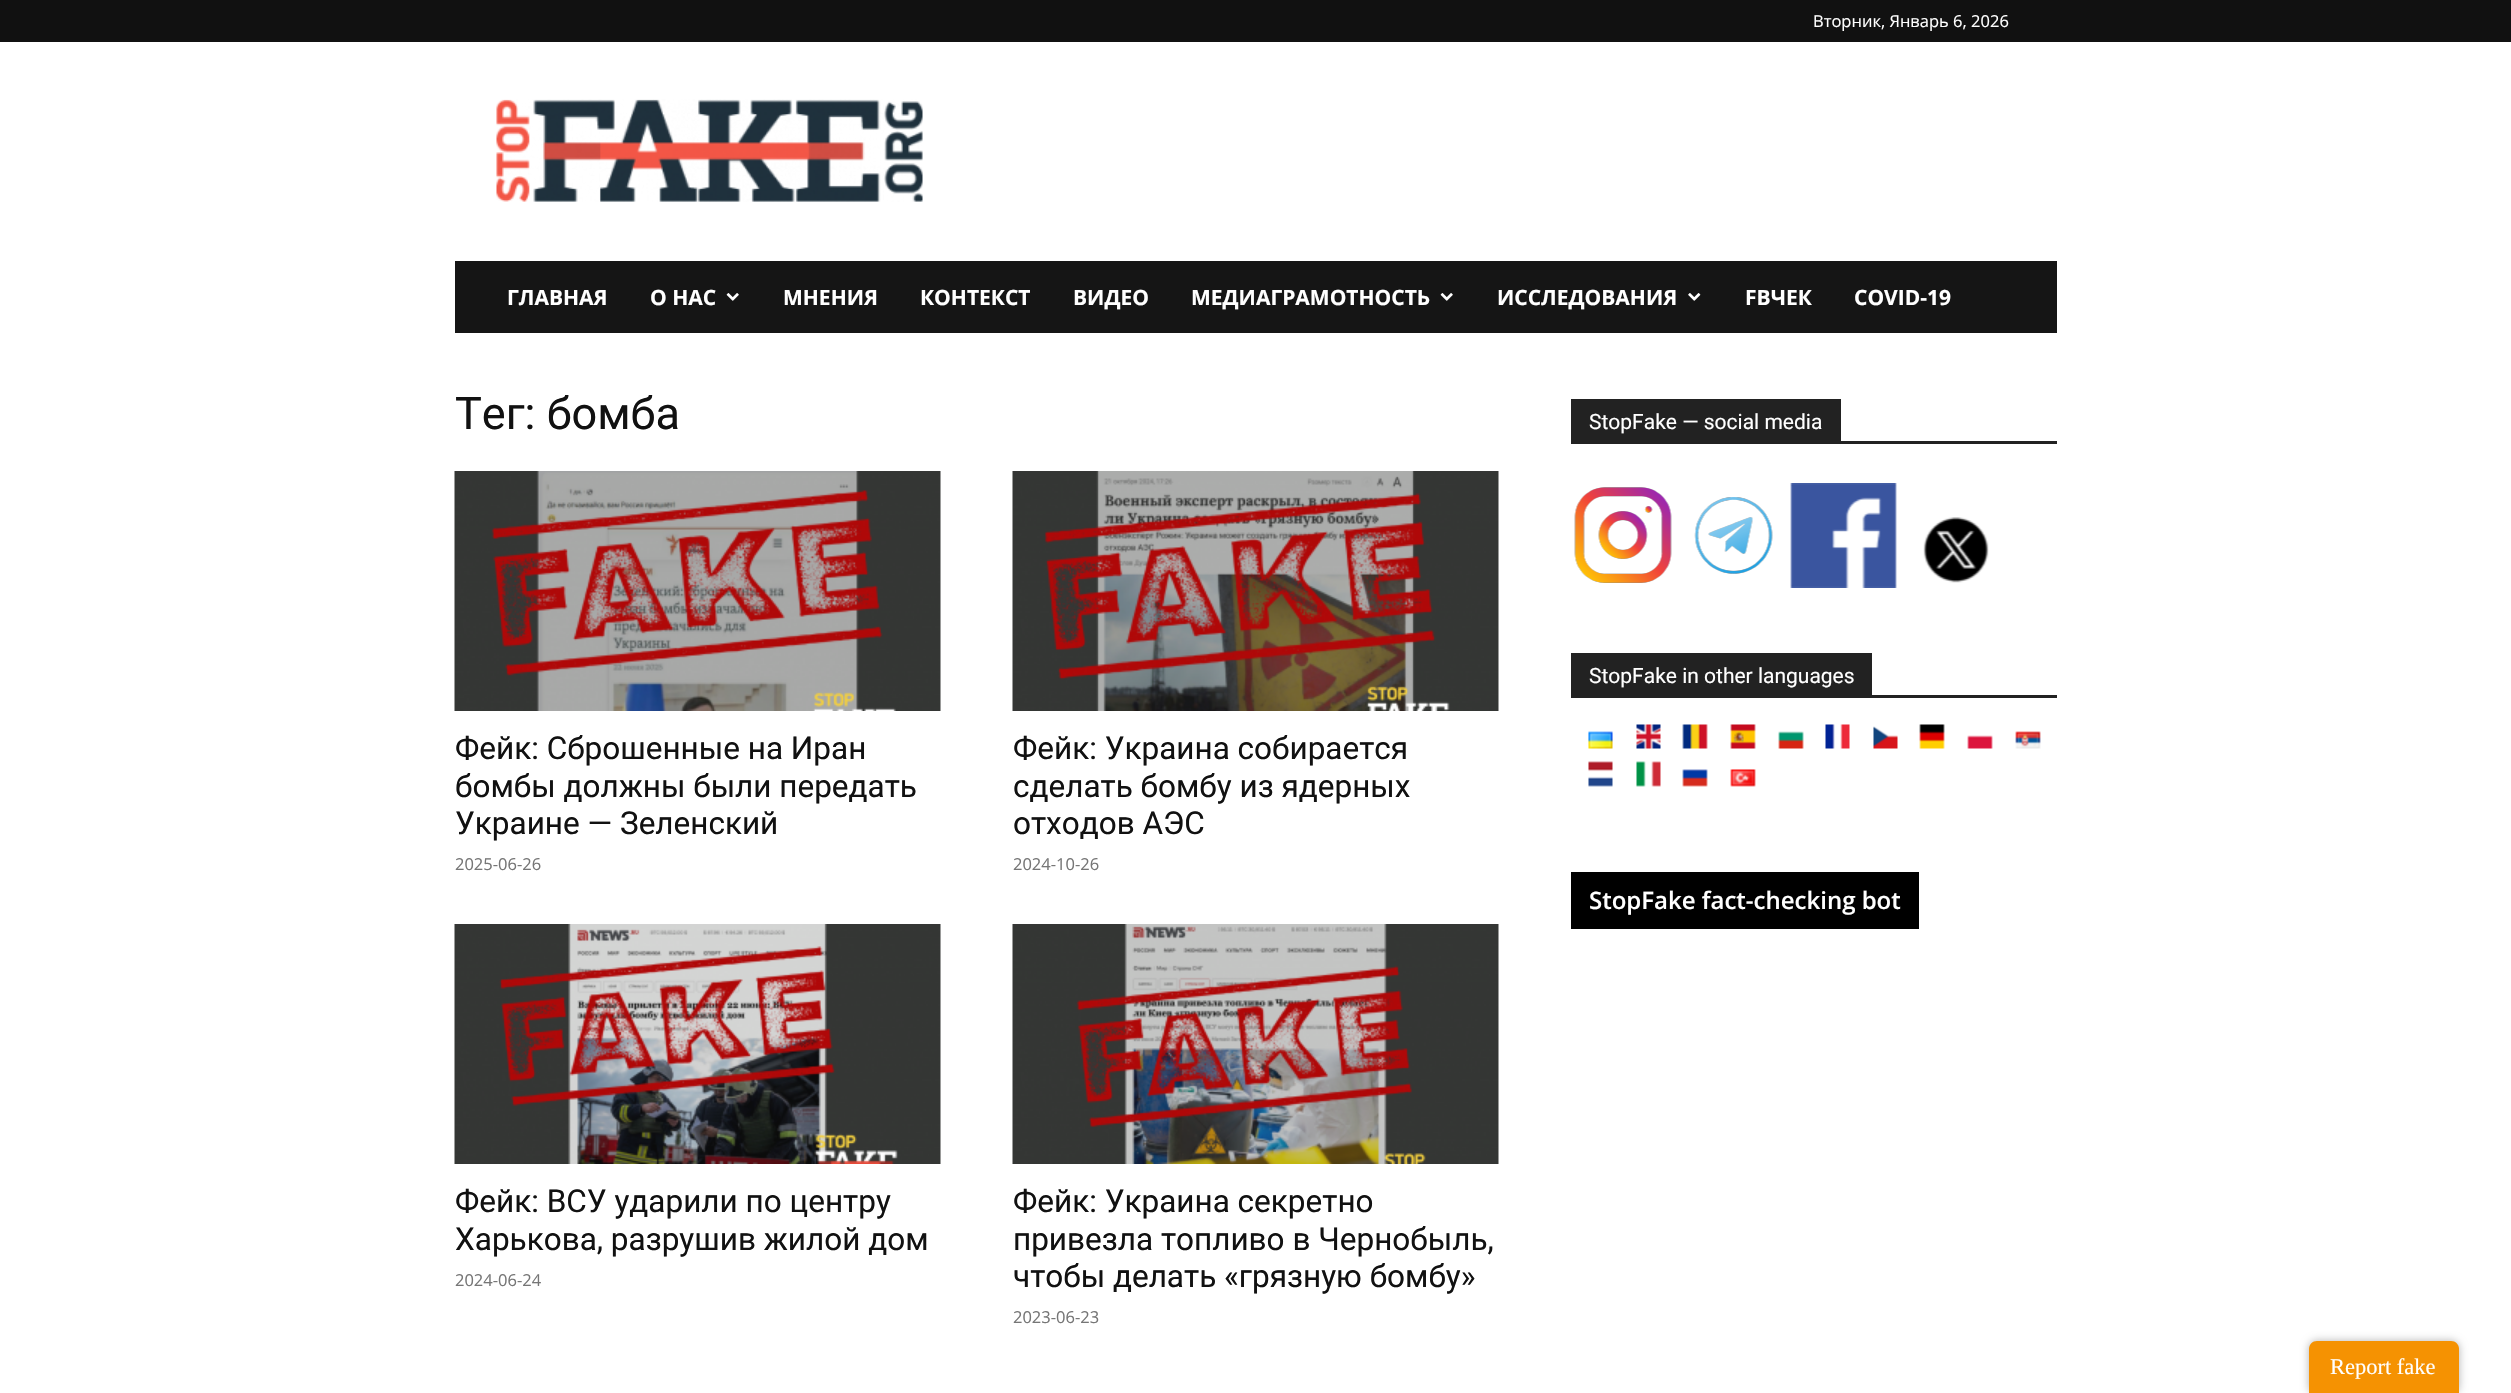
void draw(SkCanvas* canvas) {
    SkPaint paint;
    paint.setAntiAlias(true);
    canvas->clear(0xFFFFFFFF);
    paint.setColor(0xFF111111);
    canvas->drawRect(SkRect::MakeXYWH(0, 0, 2511, 42), paint);
    SkFont font1(fontMgr->matchFamilyStyle("Open Sans", SkFontStyle::Normal()), 16.5f);
    font1.setSubpixel(true);
    paint.setColor(0xFFFFFFFF);
    canvas->drawString("Вторник, Январь 6, 2026", 1813, 27, font1, paint);
    canvas->drawImageRect(SkImages::DeferredFromEncodedData(SkData::MakeFromFileName("img1.png")), SkRect::MakeXYWH(496, 99, 427, 103), SkSamplingOptions());
    paint.setColor(0xFF151515);
    canvas->drawRect(SkRect::MakeXYWH(455, 261, 1602, 72), paint);
    SkFont font2(fontMgr->matchFamilyStyle("Open Sans", SkFontStyle::Bold()), 21);
    font2.setSubpixel(true);
    paint.setColor(0xFFFFFFFF);
    canvas->drawString("ГЛАВНАЯ", 507, 305, font2, paint);
    canvas->drawString("О НАС", 650, 305, font2, paint);
    canvas->drawImageRect(SkImages::DeferredFromEncodedData(SkData::MakeFromFileName("img2.png")), SkRect::MakeXYWH(726, 293, 13, 8), SkSamplingOptions());
    canvas->drawString("МНЕНИЯ", 783, 305, font2, paint);
    canvas->drawString("КОНТЕКСТ", 920, 305, font2, paint);
    canvas->drawString("ВИДЕО", 1073, 305, font2, paint);
    canvas->drawString("МЕДИАГРАМОТНОСТЬ", 1191, 305, font2, paint);
    canvas->drawImageRect(SkImages::DeferredFromEncodedData(SkData::MakeFromFileName("img2.png")), SkRect::MakeXYWH(1440, 293, 13, 8), SkSamplingOptions());
    canvas->drawString("ИССЛЕДОВАНИЯ", 1497, 305, font2, paint);
    canvas->drawImageRect(SkImages::DeferredFromEncodedData(SkData::MakeFromFileName("img3.png")), SkRect::MakeXYWH(1688, 293, 13, 8), SkSamplingOptions());
    canvas->drawString("FBЧЕК", 1745, 305, font2, paint);
    canvas->drawString("COVID-19", 1854, 305, font2, paint);
    SkFont font3(fontMgr->matchFamilyStyle("Roboto", SkFontStyle::Normal()), 45);
    font3.setSubpixel(true);
    paint.setColor(0xFF111111);
    canvas->drawString("Тег: бомба", 455, 429, font3, paint);
    canvas->drawImageRect(SkImages::DeferredFromEncodedData(SkData::MakeFromFileName("img4.png")), SkRect::MakeXYWH(454, 471, 487, 240), SkSamplingOptions());
    SkFont font4(fontMgr->matchFamilyStyle("Roboto", SkFontStyle::Normal()), 31.5f);
    font4.setSubpixel(true);
    canvas->drawString("Фейк: Сброшенные на Иран", 455, 759, font4, paint);
    canvas->drawString("бомбы должны были передать", 455, 797, font4, paint);
    canvas->drawString("Украине — Зеленский", 455, 834, font4, paint);
    paint.setColor(0xFF767676);
    canvas->drawString("2025-06-26", 455, 870, font1, paint);
    canvas->drawImageRect(SkImages::DeferredFromEncodedData(SkData::MakeFromFileName("img5.png")), SkRect::MakeXYWH(1012, 471, 487, 240), SkSamplingOptions());
    paint.setColor(0xFF111111);
    canvas->drawString("Фейк: Украина собирается", 1013, 759, font4, paint);
    canvas->drawString("сделать бомбу из ядерных", 1013, 797, font4, paint);
    canvas->drawString("отходов АЭС", 1013, 834, font4, paint);
    paint.setColor(0xFF767676);
    canvas->drawString("2024-10-26", 1013, 870, font1, paint);
    canvas->drawImageRect(SkImages::DeferredFromEncodedData(SkData::MakeFromFileName("img6.png")), SkRect::MakeXYWH(454, 924, 487, 240), SkSamplingOptions());
    paint.setColor(0xFF111111);
    canvas->drawString("Фейк: ВСУ ударили по центру", 455, 1212, font4, paint);
    canvas->drawString("Харькова, разрушив жилой дом", 455, 1250, font4, paint);
    paint.setColor(0xFF767676);
    canvas->drawString("2024-06-24", 455, 1286, font1, paint);
    canvas->drawImageRect(SkImages::DeferredFromEncodedData(SkData::MakeFromFileName("img7.png")), SkRect::MakeXYWH(1012, 924, 487, 240), SkSamplingOptions());
    paint.setColor(0xFF111111);
    canvas->drawString("Фейк: Украина секретно", 1013, 1212, font4, paint);
    canvas->drawString("привезла топливо в Чернобыль,", 1013, 1250, font4, paint);
    canvas->drawString("чтобы делать «грязную бомбу»", 1013, 1287, font4, paint);
    paint.setColor(0xFF767676);
    canvas->drawString("2023-06-23", 1013, 1323, font1, paint);
    paint.setColor(0xFF222222);
    canvas->drawRect(SkRect::MakeXYWH(1571, 441, 486, 3), paint);
    canvas->drawRect(SkRect::MakeXYWH(1571, 399, 270, 42), paint);
    SkFont font5(fontMgr->matchFamilyStyle("Roboto", SkFontStyle::Normal()), 21);
    font5.setSubpixel(true);
    paint.setColor(0xFFFFFFFF);
    canvas->drawString("StopFake — social media", 1589, 429, font5, paint);
    canvas->drawImageRect(SkImages::DeferredFromEncodedData(SkData::MakeFromFileName("img8.png")), SkRect::MakeXYWH(1574, 487, 98, 96), SkSamplingOptions());
    canvas->drawImageRect(SkImages::DeferredFromEncodedData(SkData::MakeFromFileName("img9.png")), SkRect::MakeXYWH(1694, 497, 79, 77), SkSamplingOptions());
    canvas->drawImageRect(SkImages::DeferredFromEncodedData(SkData::MakeFromFileName("img10.png")), SkRect::MakeXYWH(1790, 483, 107, 105), SkSamplingOptions());
    canvas->drawImageRect(SkImages::DeferredFromEncodedData(SkData::MakeFromFileName("img11.png")), SkRect::MakeXYWH(1923, 517, 66, 66), SkSamplingOptions());
    paint.setColor(0xFF222222);
    canvas->drawRect(SkRect::MakeXYWH(1571, 695, 486, 3), paint);
    canvas->drawRect(SkRect::MakeXYWH(1571, 653, 301, 42), paint);
    paint.setColor(0xFFFFFFFF);
    canvas->drawString("StopFake in other languages", 1589, 683, font5, paint);
    canvas->drawImageRect(SkImages::DeferredFromEncodedData(SkData::MakeFromFileName("img12.png")), SkRect::MakeXYWH(1588, 731, 25, 18), SkSamplingOptions());
    canvas->drawImageRect(SkImages::DeferredFromEncodedData(SkData::MakeFromFileName("img13.png")), SkRect::MakeXYWH(1636, 724, 25, 25), SkSamplingOptions());
    canvas->drawImageRect(SkImages::DeferredFromEncodedData(SkData::MakeFromFileName("img14.png")), SkRect::MakeXYWH(1682, 724, 26, 25), SkSamplingOptions());
    canvas->drawImageRect(SkImages::DeferredFromEncodedData(SkData::MakeFromFileName("img15.png")), SkRect::MakeXYWH(1730, 724, 26, 25), SkSamplingOptions());
    canvas->drawImageRect(SkImages::DeferredFromEncodedData(SkData::MakeFromFileName("img16.png")), SkRect::MakeXYWH(1778, 731, 26, 18), SkSamplingOptions());
    canvas->drawImageRect(SkImages::DeferredFromEncodedData(SkData::MakeFromFileName("img17.png")), SkRect::MakeXYWH(1825, 724, 25, 25), SkSamplingOptions());
    canvas->drawImageRect(SkImages::DeferredFromEncodedData(SkData::MakeFromFileName("img18.png")), SkRect::MakeXYWH(1873, 726, 25, 23), SkSamplingOptions());
    canvas->drawImageRect(SkImages::DeferredFromEncodedData(SkData::MakeFromFileName("img19.png")), SkRect::MakeXYWH(1919, 724, 26, 25), SkSamplingOptions());
    canvas->drawImageRect(SkImages::DeferredFromEncodedData(SkData::MakeFromFileName("img20.png")), SkRect::MakeXYWH(1967, 735, 26, 14), SkSamplingOptions());
    canvas->drawImageRect(SkImages::DeferredFromEncodedData(SkData::MakeFromFileName("img21.png")), SkRect::MakeXYWH(2015, 731, 26, 18), SkSamplingOptions());
    canvas->drawImageRect(SkImages::DeferredFromEncodedData(SkData::MakeFromFileName("img22.png")), SkRect::MakeXYWH(1588, 761, 25, 26), SkSamplingOptions());
    canvas->drawImageRect(SkImages::DeferredFromEncodedData(SkData::MakeFromFileName("img23.png")), SkRect::MakeXYWH(1636, 761, 25, 26), SkSamplingOptions());
    canvas->drawImageRect(SkImages::DeferredFromEncodedData(SkData::MakeFromFileName("img24.png")), SkRect::MakeXYWH(1682, 769, 26, 18), SkSamplingOptions());
    canvas->drawImageRect(SkImages::DeferredFromEncodedData(SkData::MakeFromFileName("img25.png")), SkRect::MakeXYWH(1730, 769, 26, 18), SkSamplingOptions());
    paint.setColor(0xFF000000);
    canvas->drawRect(SkRect::MakeXYWH(1571, 872, 348, 57), paint);
    SkFont font6(fontMgr->matchFamilyStyle("Open Sans", SkFontStyle(600, SkFontStyle::kNormal_Width, SkFontStyle::kUpright_Slant)), 24);
    font6.setSubpixel(true);
    paint.setColor(0xFFFFFFFF);
    canvas->drawString("StopFake fact-checking bot", 1589, 909, font6, paint);
    paint.setColor(0x4D000000);
    paint.setMaskFilter(SkMaskFilter::MakeBlur(kNormal_SkBlurStyle, 4));
    canvas->drawRoundRect(SkRect::MakeXYWH(2309, 1341, 150, 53), 8, 8, paint);
    paint.setMaskFilter(nullptr);
    paint.setColor(0xFFF59202);
    canvas->drawPath(SkPathBuilder().moveTo(2317, 1341).lineTo(2451, 1341).cubicTo(2455.5f, 1341, 2459, 1344.5f, 2459, 1349).lineTo(2459, 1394).lineTo(2309, 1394).lineTo(2309, 1349).cubicTo(2309, 1344.5f, 2312.5f, 1341, 2317, 1341).close().detach(), paint);
    SkFont font7(fontMgr->matchFamilyStyle("Liberation Serif", SkFontStyle::Normal()), 22.5f);
    font7.setSubpixel(true);
    paint.setColor(0xFFFFFFFF);
    canvas->drawString("Report fake", 2330, 1374, font7, paint);
}
